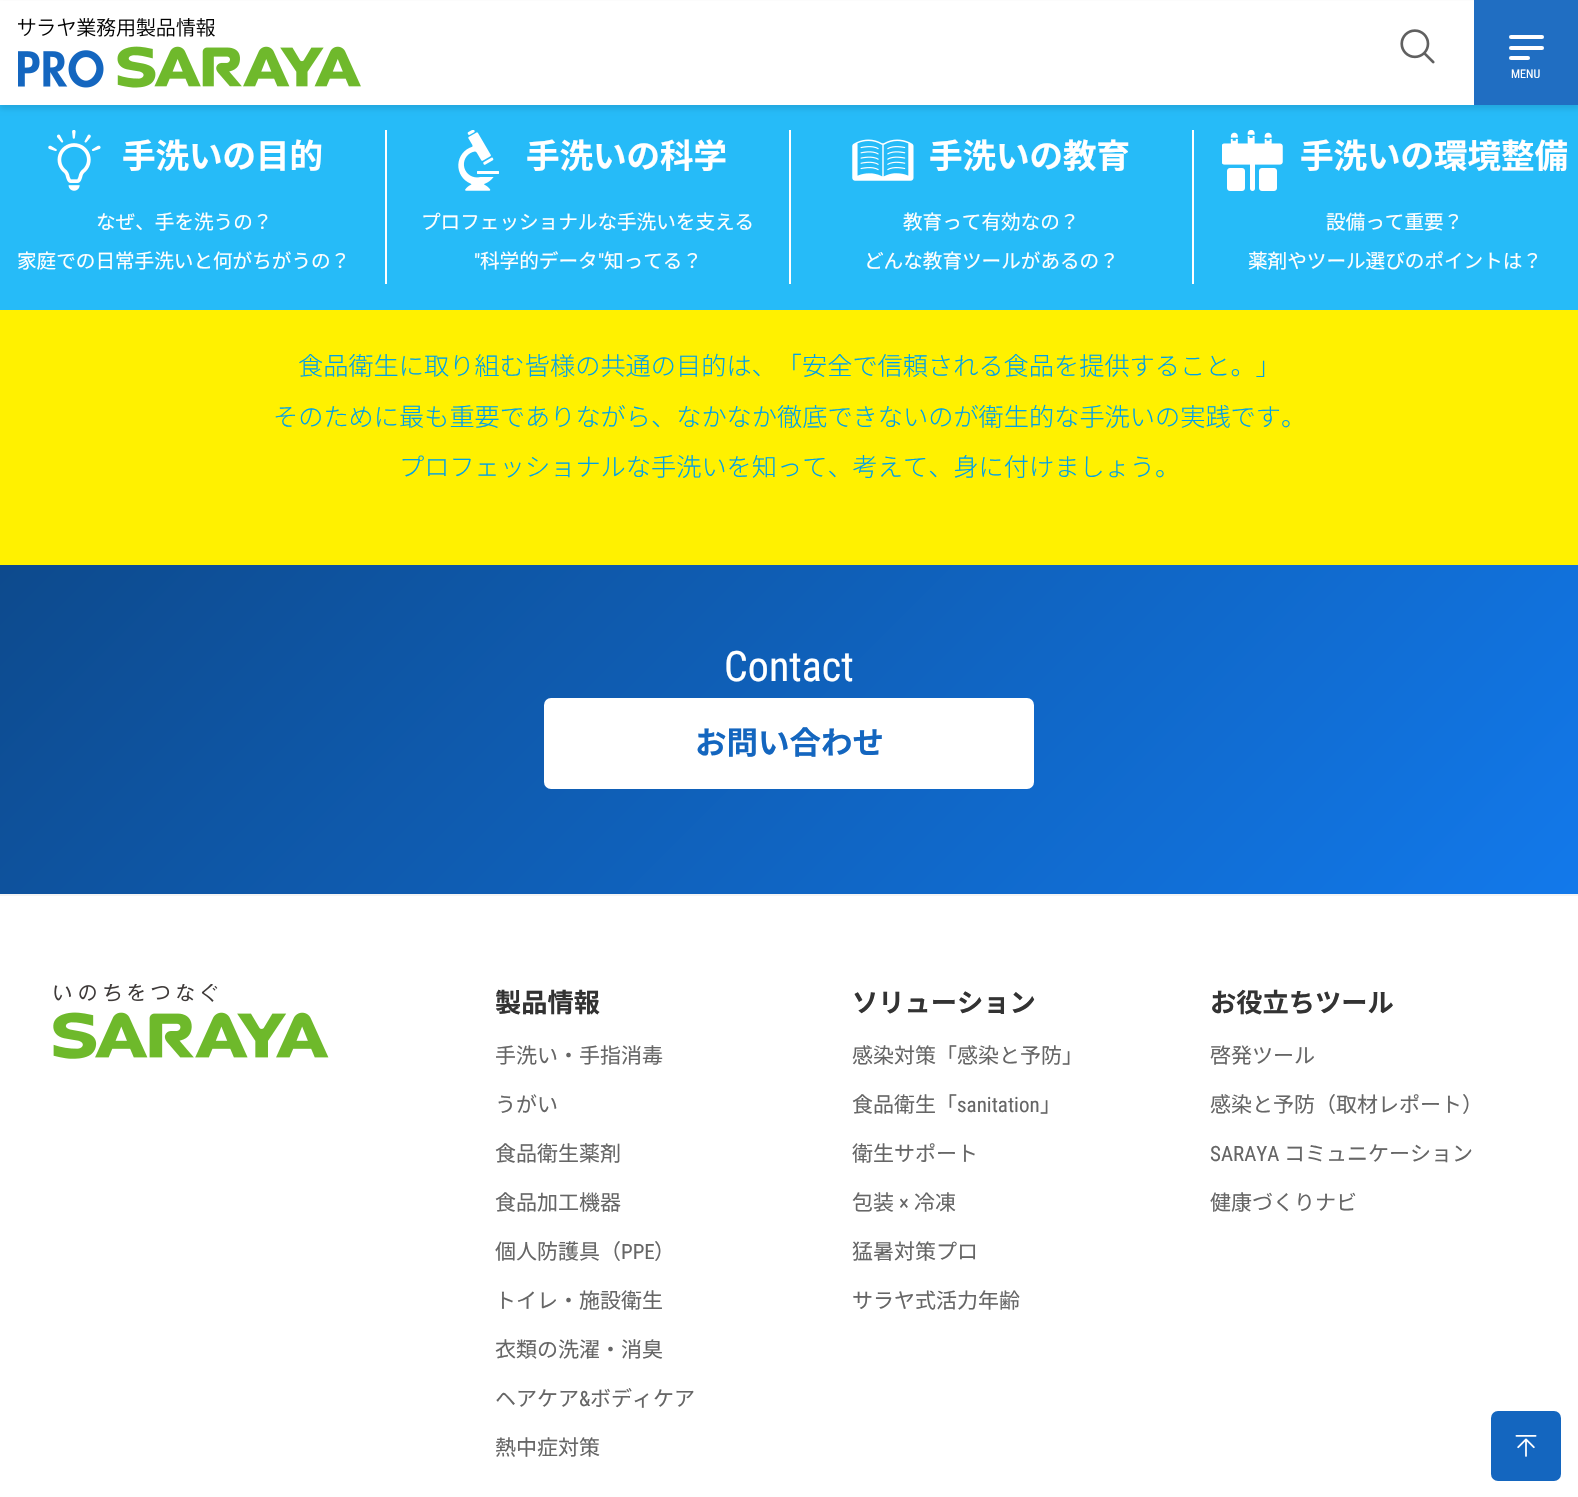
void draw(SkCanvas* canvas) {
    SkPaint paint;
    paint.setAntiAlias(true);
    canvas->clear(0xFFFFFFFF);
    paint.setColor(0xD900AFF7);
    canvas->drawRect(SkRect::MakeXYWH(0, 105, 1578, 205), paint);
    paint.setColor(0x1A000000);
    paint.setMaskFilter(SkMaskFilter::MakeBlur(kNormal_SkBlurStyle, 2.5f));
    canvas->drawRect(SkRect::MakeXYWH(0, 4, 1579, 105), paint);
    paint.setMaskFilter(nullptr);
    paint.setColor(0xFFFFFFFF);
    canvas->drawRect(SkRect::MakeXYWH(0, 1, 1474, 104), paint);
    canvas->drawImageRect(SkImages::DeferredFromEncodedData(SkData::MakeFromFileName("img1.png")), SkRect::MakeXYWH(18, 18, 343, 70), SkSamplingOptions());
    canvas->drawImageRect(SkImages::DeferredFromEncodedData(SkData::MakeFromFileName("img2.png")), SkRect::MakeXYWH(1400, 29, 35, 35), SkSamplingOptions());
    paint.setColor(0xFF206EC2);
    canvas->drawRect(SkRect::MakeXYWH(1474, 0, 104, 105), paint);
    paint.setColor(0xFFFFFFFF);
    canvas->drawRoundRect(SkRect::MakeXYWH(1509, 35, 35, 4), 2, 2, paint);
    canvas->drawRoundRect(SkRect::MakeXYWH(1509, 46, 35, 4), 2, 2, paint);
    canvas->drawRoundRect(SkRect::MakeXYWH(1509, 56, 21, 4), 2, 2, paint);
    SkFont font1(fontMgr->matchFamilyStyle("Roboto Condensed", SkFontStyle::Normal()), 12);
    font1.setSubpixel(true);
    canvas->drawString("MENU", 1511, 78, font1, paint);
    canvas->drawImageRect(SkImages::DeferredFromEncodedData(SkData::MakeFromFileName("img3.png")), SkRect::MakeXYWH(48, 130, 53, 61), SkSamplingOptions());
    SkFont font2(fontMgr->matchFamilyStyle("Noto Sans JP", SkFontStyle::Bold()), 33.5f);
    font2.setSubpixel(true);
    canvas->drawString("手洗いの目的", 122, 168, font2, paint);
    SkFont font3(fontMgr->matchFamilyStyle("Noto Sans JP", SkFontStyle::Normal()), 19.6f);
    font3.setSubpixel(true);
    canvas->drawString("なぜ、手を洗うの？", 96, 229, font3, paint);
    canvas->drawString("家庭での日常手洗いと何がちがうの？", 17, 268, font3, paint);
    canvas->drawRect(SkRect::MakeXYWH(385, 130, 2, 154), paint);
    canvas->drawImageRect(SkImages::DeferredFromEncodedData(SkData::MakeFromFileName("img4.png")), SkRect::MakeXYWH(458, 130, 41, 61), SkSamplingOptions());
    canvas->drawString("手洗いの科学", 526, 168, font2, paint);
    canvas->drawString("プロフェッショナルな手洗いを支える", 421, 229, font3, paint);
    SkFont font4(fontMgr->matchFamilyStyle("Roboto Condensed", SkFontStyle::Normal()), 19.6f);
    font4.setSubpixel(true);
    canvas->drawString("\"", 474, 268, font4, paint);
    canvas->drawString("科学的データ", 480, 268, font3, paint);
    canvas->drawString("\"", 598, 268, font4, paint);
    canvas->drawString("知ってる？", 604, 268, font3, paint);
    canvas->drawRect(SkRect::MakeXYWH(789, 130, 2, 154), paint);
    canvas->drawImageRect(SkImages::DeferredFromEncodedData(SkData::MakeFromFileName("img5.png")), SkRect::MakeXYWH(852, 139, 62, 42), SkSamplingOptions());
    canvas->drawString("手洗いの教育", 929, 168, font2, paint);
    canvas->drawString("教育って有効なの？", 903, 229, font3, paint);
    canvas->drawString("どんな教育ツールがあるの？", 864, 268, font3, paint);
    canvas->drawRect(SkRect::MakeXYWH(1192, 130, 2, 154), paint);
    canvas->drawImageRect(SkImages::DeferredFromEncodedData(SkData::MakeFromFileName("img6.png")), SkRect::MakeXYWH(1222, 130, 61, 61), SkSamplingOptions());
    canvas->drawString("手洗いの環境整備", 1300, 168, font2, paint);
    canvas->drawString("設備って重要？", 1326, 229, font3, paint);
    canvas->drawString("薬剤やツール選びのポイントは？", 1248, 268, font3, paint);
    paint.setColor(0xFFFFF100);
    canvas->drawRect(SkRect::MakeXYWH(0, 310, 1578, 255), paint);
    SkFont font5(fontMgr->matchFamilyStyle("Noto Sans JP", SkFontStyle(300, SkFontStyle::kNormal_Width, SkFontStyle::kUpright_Slant)), 25.2f);
    font5.setSubpixel(true);
    paint.setColor(0xFF00A0E9);
    canvas->drawString("食品衛生に取り組む皆様の共通の目的は、「安全で信頼される食品を提供すること。」", 298, 375, font5, paint);
    canvas->drawString("そのために最も重要でありながら、なかなか徹底できないのが衛生的な手洗いの実践です。", 273, 426, font5, paint);
    canvas->drawString("プロフェッショナルな手洗いを知って、考えて、身に付けましょう。", 399, 476, font5, paint);
    {
        const SkColor colors[] = {0xFF0D4A8D, 0xFF1279EB};
        const float stops[] = {0, 1};
        const SkPoint ends[] = {{312, 253}, {1266, 1207}};
        paint.setShader(SkGradientShader::MakeLinear(ends, colors, stops, 2, SkTileMode::kClamp));
        paint.setAlpha(255);
    }
    canvas->drawRect(SkRect::MakeXYWH(0, 565, 1578, 329), paint);
    SkFont font6(fontMgr->matchFamilyStyle("Roboto Condensed", SkFontStyle::Normal()), 42);
    font6.setSubpixel(true);
    paint.setShader(nullptr);
    paint.setColor(0xFFFFFFFF);
    canvas->drawString("Contact", 724, 681, font6, paint);
    canvas->drawRoundRect(SkRect::MakeXYWH(544, 698, 490, 91), 7, 7, paint);
    SkFont font7(fontMgr->matchFamilyStyle("Noto Sans JP", SkFontStyle::Bold()), 31.5f);
    font7.setSubpixel(true);
    paint.setColor(0xFF1466BF);
    canvas->drawString("お問い合わせ", 695, 754, font7, paint);
    paint.setColor(0xFFF4F4F4);
    canvas->drawRect(SkRect::MakeXYWH(0, 894, 1578, 2), paint);
    canvas->drawImageRect(SkImages::DeferredFromEncodedData(SkData::MakeFromFileName("img7.png")), SkRect::MakeXYWH(53, 984, 276, 75), SkSamplingOptions());
    SkFont font8(fontMgr->matchFamilyStyle("Noto Sans JP", SkFontStyle::Bold()), 26.25f);
    font8.setSubpixel(true);
    paint.setColor(0xFF333333);
    canvas->drawString("製品情報", 495, 1012, font8, paint);
    SkFont font9(fontMgr->matchFamilyStyle("Noto Sans JP", SkFontStyle::Normal()), 21);
    font9.setSubpixel(true);
    paint.setColor(0xFF666666);
    canvas->drawString("手洗い・手指消毒", 495, 1063, font9, paint);
    canvas->drawString("うがい", 495, 1112, font9, paint);
    canvas->drawString("食品衛生薬剤", 495, 1161, font9, paint);
    canvas->drawString("食品加工機器", 495, 1210, font9, paint);
    canvas->drawString("個人防護具（", 495, 1259, font9, paint);
    SkFont font10(fontMgr->matchFamilyStyle("Roboto Condensed", SkFontStyle::Normal()), 21);
    font10.setSubpixel(true);
    canvas->drawString("PPE", 621, 1259, font10, paint);
    canvas->drawString("）", 654, 1259, font9, paint);
    canvas->drawString("トイレ・施設衛生", 495, 1308, font9, paint);
    canvas->drawString("衣類の洗濯・消臭", 495, 1357, font9, paint);
    canvas->drawString("ヘアケア", 495, 1406, font9, paint);
    canvas->drawString("&", 579, 1406, font10, paint);
    canvas->drawString("ボディケア", 590, 1406, font9, paint);
    canvas->drawString("熱中症対策", 495, 1455, font9, paint);
    paint.setColor(0xFF333333);
    canvas->drawString("ソリューション", 852, 1012, font8, paint);
    paint.setColor(0xFF666666);
    canvas->drawString("感染対策「感染と予防」", 852, 1063, font9, paint);
    canvas->drawString("食品衛生「", 852, 1112, font9, paint);
    canvas->drawString("sanitation", 957, 1112, font10, paint);
    canvas->drawString("」", 1040, 1112, font9, paint);
    canvas->drawString("衛生サポート", 852, 1161, font9, paint);
    canvas->drawString("包装", 852, 1210, font9, paint);
    canvas->drawString("×", 899, 1210, font10, paint);
    canvas->drawString("冷凍", 914, 1210, font9, paint);
    canvas->drawString("猛暑対策プロ", 852, 1259, font9, paint);
    canvas->drawString("サラヤ式活力年齢", 852, 1308, font9, paint);
    paint.setColor(0xFF333333);
    canvas->drawString("お役立ちツール", 1210, 1012, font8, paint);
    paint.setColor(0xFF666666);
    canvas->drawString("啓発ツール", 1210, 1063, font9, paint);
    canvas->drawString("感染と予防（取材レポート）", 1210, 1112, font9, paint);
    canvas->drawString("SARAYA", 1210, 1161, font10, paint);
    canvas->drawString("コミュニケーション", 1284, 1161, font9, paint);
    canvas->drawString("健康づくりナビ", 1210, 1210, font9, paint);
    paint.setColor(0xFF1466BF);
    canvas->drawRoundRect(SkRect::MakeXYWH(1491, 1411, 70, 70), 7, 7, paint);
    canvas->drawImageRect(SkImages::DeferredFromEncodedData(SkData::MakeFromFileName("img8.png")), SkRect::MakeXYWH(1515, 1435, 22, 22), SkSamplingOptions());
}
